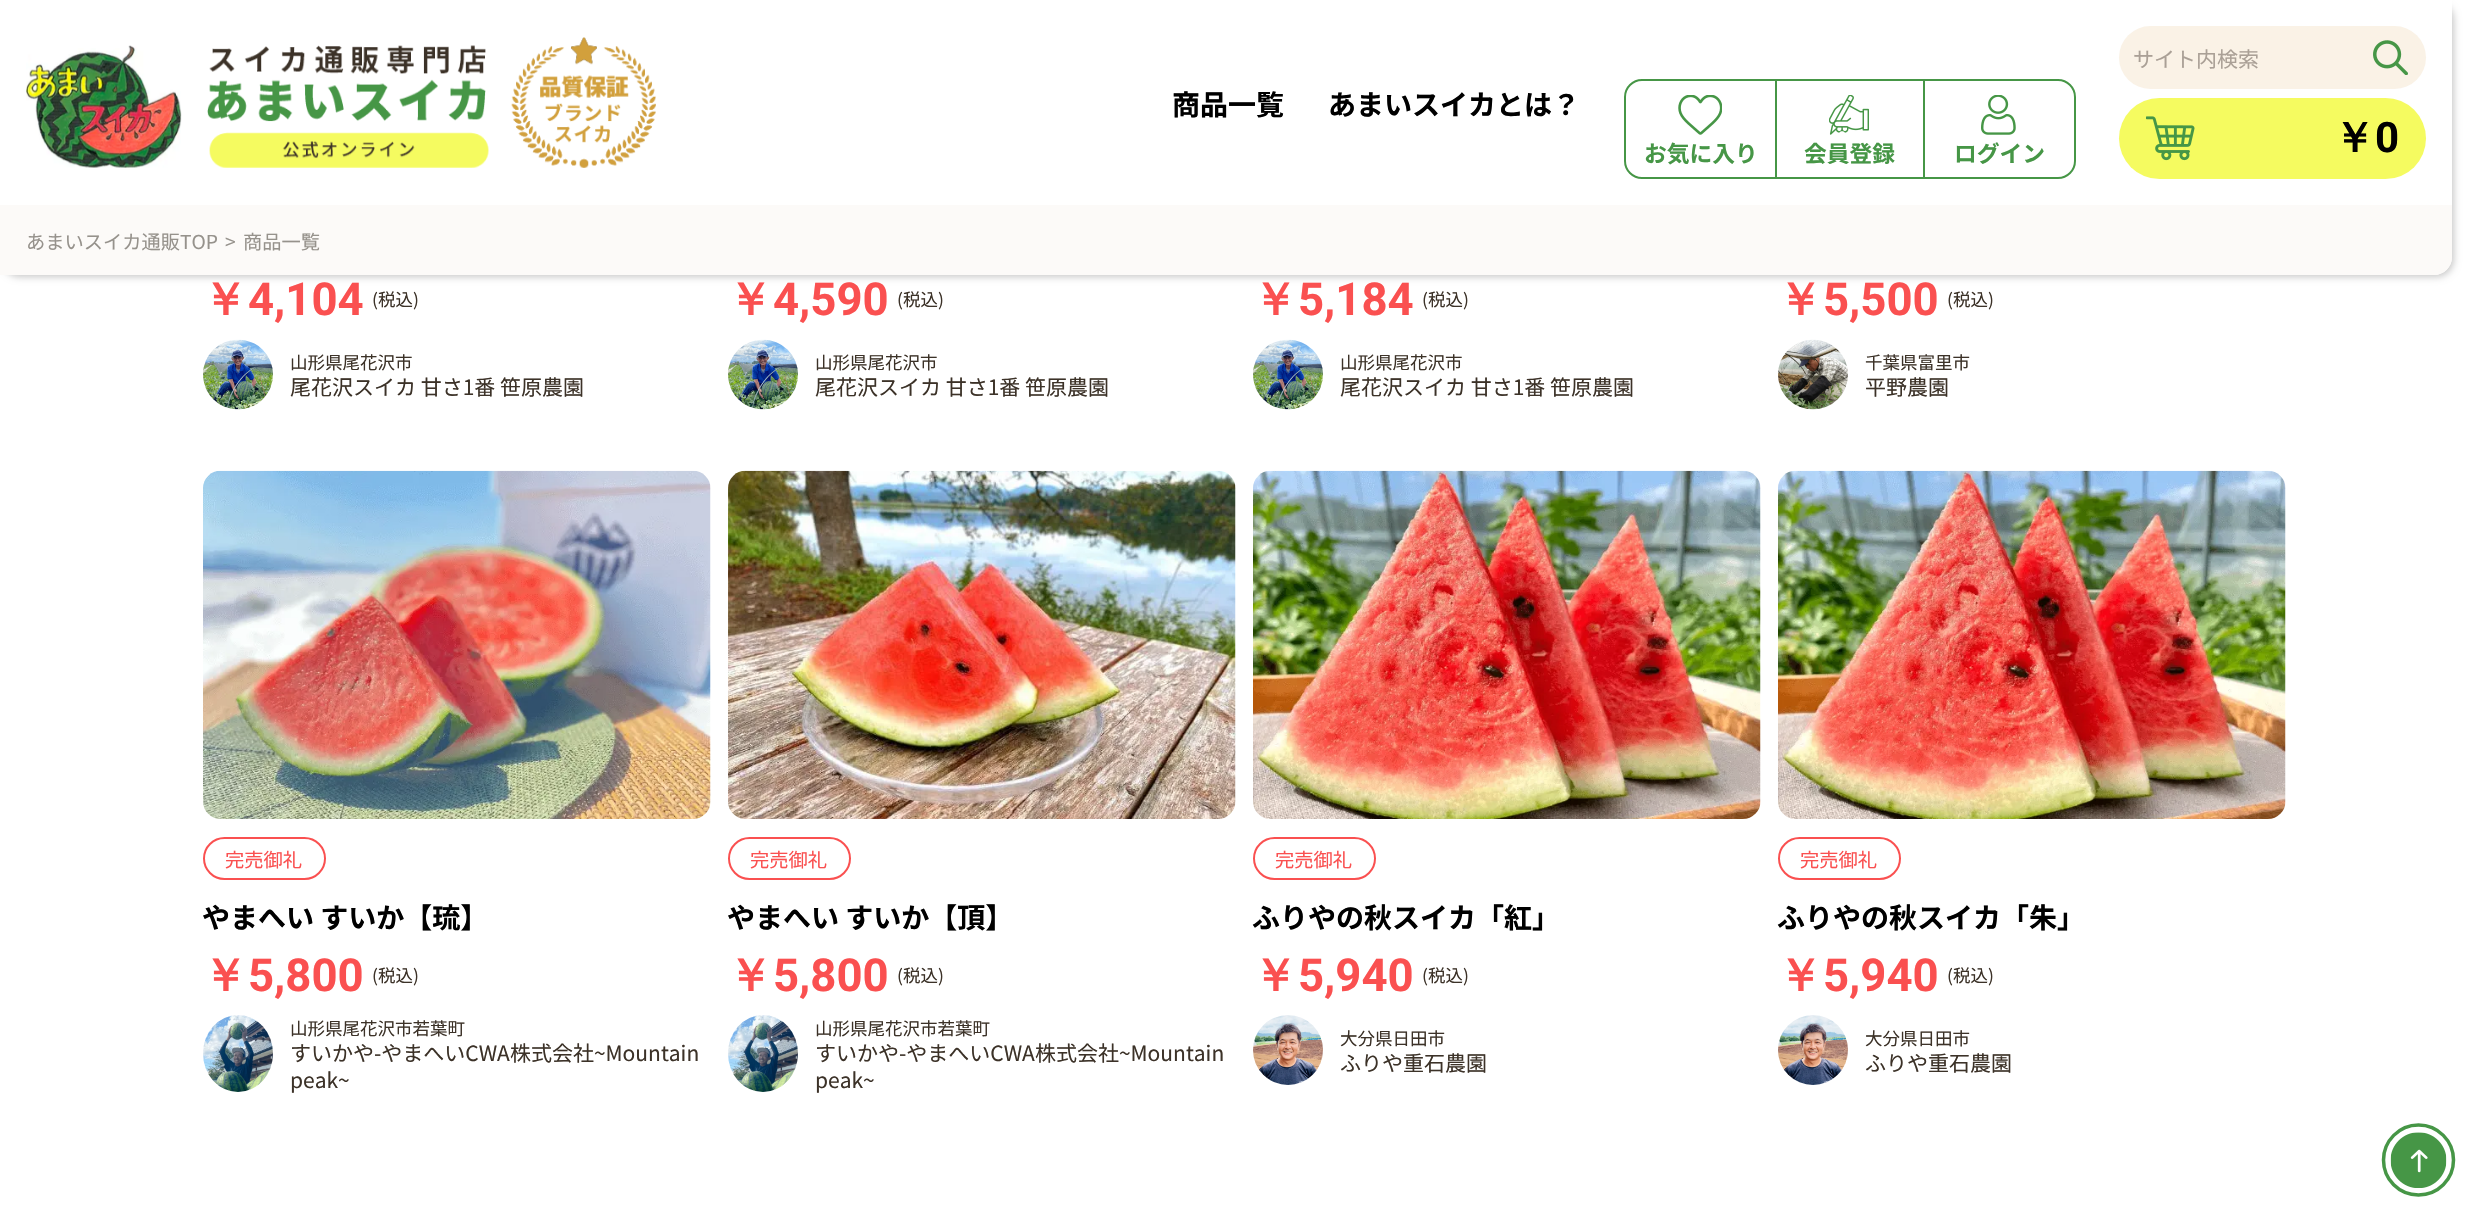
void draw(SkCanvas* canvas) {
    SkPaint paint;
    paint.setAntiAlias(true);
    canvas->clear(0xFFFFFFFF);
    paint.setColor(0x36000000);
    paint.setMaskFilter(SkMaskFilter::MakeBlur(kNormal_SkBlurStyle, 3.5f));
    canvas->drawRoundRect(SkRect::MakeXYWH(2, 2, 2452, 275), 18, 18, paint);
    paint.setMaskFilter(nullptr);
    paint.setColor(0xFFFFFFFF);
    canvas->drawPath(SkPathBuilder().moveTo(0, 0).lineTo(2452, 0).lineTo(2452, 257).cubicTo(2452, 267, 2444, 275, 2434, 275).lineTo(0, 275).close().detach(), paint);
    canvas->drawImageRect(SkImages::DeferredFromEncodedData(SkData::MakeFromFileName("img1.png")), SkRect::MakeXYWH(26, 37, 630, 131), SkSamplingOptions());
    SkFont font1(fontMgr->matchFamilyStyle("Noto Sans JP", SkFontStyle::Bold()), 28);
    font1.setSubpixel(true);
    paint.setColor(0xFF000000);
    canvas->drawString("商品一覧", 1172, 115, font1, paint);
    canvas->drawString("あまいスイカとは？", 1328, 115, font1, paint);
    paint.setColor(0xFFFAF2E6);
    canvas->drawRoundRect(SkRect::MakeXYWH(2119, 26, 307, 63), 31.5f, 31.5f, paint);
    SkFont font2(fontMgr->matchFamilyStyle("Noto Sans JP", SkFontStyle::Normal()), 21);
    font2.setSubpixel(true);
    paint.setColor(0xFFAAA096);
    canvas->drawString("サイト内検索", 2133, 67, font2, paint);
    canvas->drawImageRect(SkImages::DeferredFromEncodedData(SkData::MakeFromFileName("img2.png")), SkRect::MakeXYWH(2373, 40, 35, 35), SkSamplingOptions());
    paint.setColor(0xFFF5FB60);
    canvas->drawRoundRect(SkRect::MakeXYWH(2119, 98, 307, 81), 40.5f, 40.5f, paint);
    canvas->drawImageRect(SkImages::DeferredFromEncodedData(SkData::MakeFromFileName("img3.png")), SkRect::MakeXYWH(2146, 116, 49, 45), SkSamplingOptions());
    SkFont font3(fontMgr->matchFamilyStyle("WenQuanYi Zen Hei", SkFontStyle::Bold()), 42);
    font3.setSubpixel(true);
    paint.setColor(0xFF000000);
    canvas->drawString("￥", 2333, 152, font3, paint);
    SkFont font4(fontMgr->matchFamilyStyle("Roboto", SkFontStyle::Bold()), 42);
    font4.setSubpixel(true);
    canvas->drawString("0", 2375, 152, font4, paint);
    paint.setStyle(SkPaint::kStroke_Style);
    paint.setStrokeWidth(2);
    paint.setColor(0xFF469646);
    canvas->drawRoundRect(SkRect::MakeXYWH(1625, 80, 450, 98), 17, 17, paint);
    canvas->drawImageRect(SkImages::DeferredFromEncodedData(SkData::MakeFromFileName("img4.png")), SkRect::MakeXYWH(1678, 95, 44, 40), SkSamplingOptions());
    SkFont font5(fontMgr->matchFamilyStyle("Noto Sans JP", SkFontStyle::Bold()), 22.75f);
    font5.setSubpixel(true);
    paint.setStyle(SkPaint::kFill_Style);
    canvas->drawString("お気に入り", 1644, 162, font5, paint);
    canvas->drawRect(SkRect::MakeXYWH(1923, 81, 2, 96), paint);
    canvas->drawRect(SkRect::MakeXYWH(1775, 81, 2, 96), paint);
    canvas->drawImageRect(SkImages::DeferredFromEncodedData(SkData::MakeFromFileName("img5.png")), SkRect::MakeXYWH(1829, 95, 40, 40), SkSamplingOptions());
    canvas->drawString("会員登録", 1804, 162, font5, paint);
    canvas->drawImageRect(SkImages::DeferredFromEncodedData(SkData::MakeFromFileName("img6.png")), SkRect::MakeXYWH(1981, 95, 35, 40), SkSamplingOptions());
    canvas->drawString("ログイン", 1954, 162, font5, paint);
    paint.setColor(0xFFFCFAF8);
    canvas->drawPath(SkPathBuilder().moveTo(0, 205).lineTo(2452, 205).lineTo(2452, 257).cubicTo(2452, 267, 2444, 275, 2434, 275).lineTo(0, 275).close().detach(), paint);
    SkFont font6(fontMgr->matchFamilyStyle("Noto Sans JP", SkFontStyle::Normal()), 19.25f);
    font6.setSubpixel(true);
    paint.setColor(0xFF96928C);
    canvas->drawString("あまいスイカ通販TOP", 26, 249, font6, paint);
    canvas->drawString(">", 225, 249, font6, paint);
    canvas->drawString("商品一覧", 243, 249, font6, paint);
    SkFont font7(fontMgr->matchFamilyStyle("WenQuanYi Zen Hei", SkFontStyle::Bold()), 45.5f);
    font7.setSubpixel(true);
    paint.setColor(0xFFFA5050);
    canvas->drawString("￥", 202, 315, font7, paint);
    SkFont font8(fontMgr->matchFamilyStyle("Roboto", SkFontStyle::Bold()), 45.5f);
    font8.setSubpixel(true);
    canvas->drawString("4,104", 248, 315, font8, paint);
    SkFont font9(fontMgr->matchFamilyStyle("Noto Sans JP", SkFontStyle::Normal()), 17.5f);
    font9.setSubpixel(true);
    paint.setColor(0xFF3C3228);
    canvas->drawString("(税込)", 372, 306, font9, paint);
    canvas->drawImageRect(SkImages::DeferredFromEncodedData(SkData::MakeFromFileName("img7.png")), SkRect::MakeXYWH(203, 339, 70, 71), SkSamplingOptions());
    canvas->drawString("山形県尾花沢市", 290, 369, font9, paint);
    canvas->drawString("尾花沢スイカ 甘さ1番 笹原農園", 290, 395, font2, paint);
    paint.setColor(0xFFFA5050);
    canvas->drawString("￥", 727, 315, font7, paint);
    canvas->drawString("4,590", 773, 315, font8, paint);
    paint.setColor(0xFF3C3228);
    canvas->drawString("(税込)", 897, 306, font9, paint);
    canvas->drawImageRect(SkImages::DeferredFromEncodedData(SkData::MakeFromFileName("img8.png")), SkRect::MakeXYWH(728, 339, 70, 71), SkSamplingOptions());
    canvas->drawString("山形県尾花沢市", 815, 369, font9, paint);
    canvas->drawString("尾花沢スイカ 甘さ1番 笹原農園", 815, 395, font2, paint);
    paint.setColor(0xFFFA5050);
    canvas->drawString("￥", 1252, 315, font7, paint);
    canvas->drawString("5,184", 1298, 315, font8, paint);
    paint.setColor(0xFF3C3228);
    canvas->drawString("(税込)", 1422, 306, font9, paint);
    canvas->drawImageRect(SkImages::DeferredFromEncodedData(SkData::MakeFromFileName("img9.png")), SkRect::MakeXYWH(1253, 339, 70, 71), SkSamplingOptions());
    canvas->drawString("山形県尾花沢市", 1340, 369, font9, paint);
    canvas->drawString("尾花沢スイカ 甘さ1番 笹原農園", 1340, 395, font2, paint);
    paint.setColor(0xFFFA5050);
    canvas->drawString("￥", 1777, 315, font7, paint);
    canvas->drawString("5,500", 1823, 315, font8, paint);
    paint.setColor(0xFF3C3228);
    canvas->drawString("(税込)", 1947, 306, font9, paint);
    canvas->drawImageRect(SkImages::DeferredFromEncodedData(SkData::MakeFromFileName("img10.png")), SkRect::MakeXYWH(1778, 339, 70, 71), SkSamplingOptions());
    canvas->drawString("千葉県富里市", 1865, 369, font9, paint);
    canvas->drawString("平野農園", 1865, 395, font2, paint);
    canvas->drawImageRect(SkImages::DeferredFromEncodedData(SkData::MakeFromFileName("img11.png")), SkRect::MakeXYWH(203, 470, 508, 349), SkSamplingOptions());
    paint.setStyle(SkPaint::kStroke_Style);
    paint.setColor(0xFFFA5050);
    canvas->drawRoundRect(SkRect::MakeXYWH(204, 838, 121, 41), 20.5f, 20.5f, paint);
    paint.setStyle(SkPaint::kFill_Style);
    canvas->drawString("完売御礼", 225, 867, font6, paint);
    paint.setColor(0xFF000000);
    canvas->drawString("やまへい すいか【琉】", 202, 928, font1, paint);
    paint.setColor(0xFFFA5050);
    canvas->drawString("￥", 202, 991, font7, paint);
    canvas->drawString("5,800", 248, 991, font8, paint);
    paint.setColor(0xFF3C3228);
    canvas->drawString("(税込)", 372, 982, font9, paint);
    canvas->drawImageRect(SkImages::DeferredFromEncodedData(SkData::MakeFromFileName("img12.png")), SkRect::MakeXYWH(203, 1015, 70, 77), SkSamplingOptions());
    canvas->drawString("山形県尾花沢市若葉町", 290, 1035, font9, paint);
    canvas->drawString("すいかや-やまへいCWA株式会社~Mountain", 290, 1061, font2, paint);
    canvas->drawString("peak~", 290, 1088, font2, paint);
    canvas->drawImageRect(SkImages::DeferredFromEncodedData(SkData::MakeFromFileName("img13.png")), SkRect::MakeXYWH(728, 470, 508, 349), SkSamplingOptions());
    paint.setStyle(SkPaint::kStroke_Style);
    paint.setColor(0xFFFA5050);
    canvas->drawRoundRect(SkRect::MakeXYWH(729, 838, 121, 41), 20.5f, 20.5f, paint);
    paint.setStyle(SkPaint::kFill_Style);
    canvas->drawString("完売御礼", 750, 867, font6, paint);
    paint.setColor(0xFF000000);
    canvas->drawString("やまへい すいか【頂】", 727, 928, font1, paint);
    paint.setColor(0xFFFA5050);
    canvas->drawString("￥", 727, 991, font7, paint);
    canvas->drawString("5,800", 773, 991, font8, paint);
    paint.setColor(0xFF3C3228);
    canvas->drawString("(税込)", 897, 982, font9, paint);
    canvas->drawImageRect(SkImages::DeferredFromEncodedData(SkData::MakeFromFileName("img14.png")), SkRect::MakeXYWH(728, 1015, 70, 77), SkSamplingOptions());
    canvas->drawString("山形県尾花沢市若葉町", 815, 1035, font9, paint);
    canvas->drawString("すいかや-やまへいCWA株式会社~Mountain", 815, 1061, font2, paint);
    canvas->drawString("peak~", 815, 1088, font2, paint);
    canvas->drawImageRect(SkImages::DeferredFromEncodedData(SkData::MakeFromFileName("img15.png")), SkRect::MakeXYWH(1253, 470, 508, 349), SkSamplingOptions());
    paint.setStyle(SkPaint::kStroke_Style);
    paint.setColor(0xFFFA5050);
    canvas->drawRoundRect(SkRect::MakeXYWH(1254, 838, 121, 41), 20.5f, 20.5f, paint);
    paint.setStyle(SkPaint::kFill_Style);
    canvas->drawString("完売御礼", 1275, 867, font6, paint);
    paint.setColor(0xFF000000);
    canvas->drawString("ふりやの秋スイカ「紅」", 1252, 928, font1, paint);
    paint.setColor(0xFFFA5050);
    canvas->drawString("￥", 1252, 991, font7, paint);
    canvas->drawString("5,940", 1298, 991, font8, paint);
    paint.setColor(0xFF3C3228);
    canvas->drawString("(税込)", 1422, 982, font9, paint);
    canvas->drawImageRect(SkImages::DeferredFromEncodedData(SkData::MakeFromFileName("img16.png")), SkRect::MakeXYWH(1253, 1015, 70, 70), SkSamplingOptions());
    canvas->drawString("大分県日田市", 1340, 1045, font9, paint);
    canvas->drawString("ふりや重石農園", 1340, 1071, font2, paint);
    canvas->drawImageRect(SkImages::DeferredFromEncodedData(SkData::MakeFromFileName("img17.png")), SkRect::MakeXYWH(1778, 470, 508, 349), SkSamplingOptions());
    paint.setStyle(SkPaint::kStroke_Style);
    paint.setColor(0xFFFA5050);
    canvas->drawRoundRect(SkRect::MakeXYWH(1779, 838, 121, 41), 20.5f, 20.5f, paint);
    paint.setStyle(SkPaint::kFill_Style);
    canvas->drawString("完売御礼", 1800, 867, font6, paint);
    paint.setColor(0xFF000000);
    canvas->drawString("ふりやの秋スイカ「朱」", 1777, 928, font1, paint);
    paint.setColor(0xFFFA5050);
    canvas->drawString("￥", 1777, 991, font7, paint);
    canvas->drawString("5,940", 1823, 991, font8, paint);
    paint.setColor(0xFF3C3228);
    canvas->drawString("(税込)", 1947, 982, font9, paint);
    canvas->drawImageRect(SkImages::DeferredFromEncodedData(SkData::MakeFromFileName("img18.png")), SkRect::MakeXYWH(1778, 1015, 70, 70), SkSamplingOptions());
    canvas->drawString("大分県日田市", 1865, 1045, font9, paint);
    canvas->drawString("ふりや重石農園", 1865, 1071, font2, paint);
    paint.setStyle(SkPaint::kStroke_Style);
    paint.setStrokeWidth(3.5f);
    paint.setColor(0xFF469646);
    canvas->drawPath(SkPathBuilder().moveTo(2383.5f, 1160).cubicTo(2383.5f, 1141, 2399, 1125, 2418.5f, 1125).cubicTo(2438, 1125, 2453.5f, 1141, 2453.5f, 1160).cubicTo(2453.5f, 1179.5f, 2438, 1195, 2418.5f, 1195).cubicTo(2399, 1195, 2383.5f, 1179.5f, 2383.5f, 1160).close().detach(), paint);
    canvas->drawImageRect(SkImages::DeferredFromEncodedData(SkData::MakeFromFileName("img19.png")), SkRect::MakeXYWH(2390, 1132, 57, 56), SkSamplingOptions());
}
